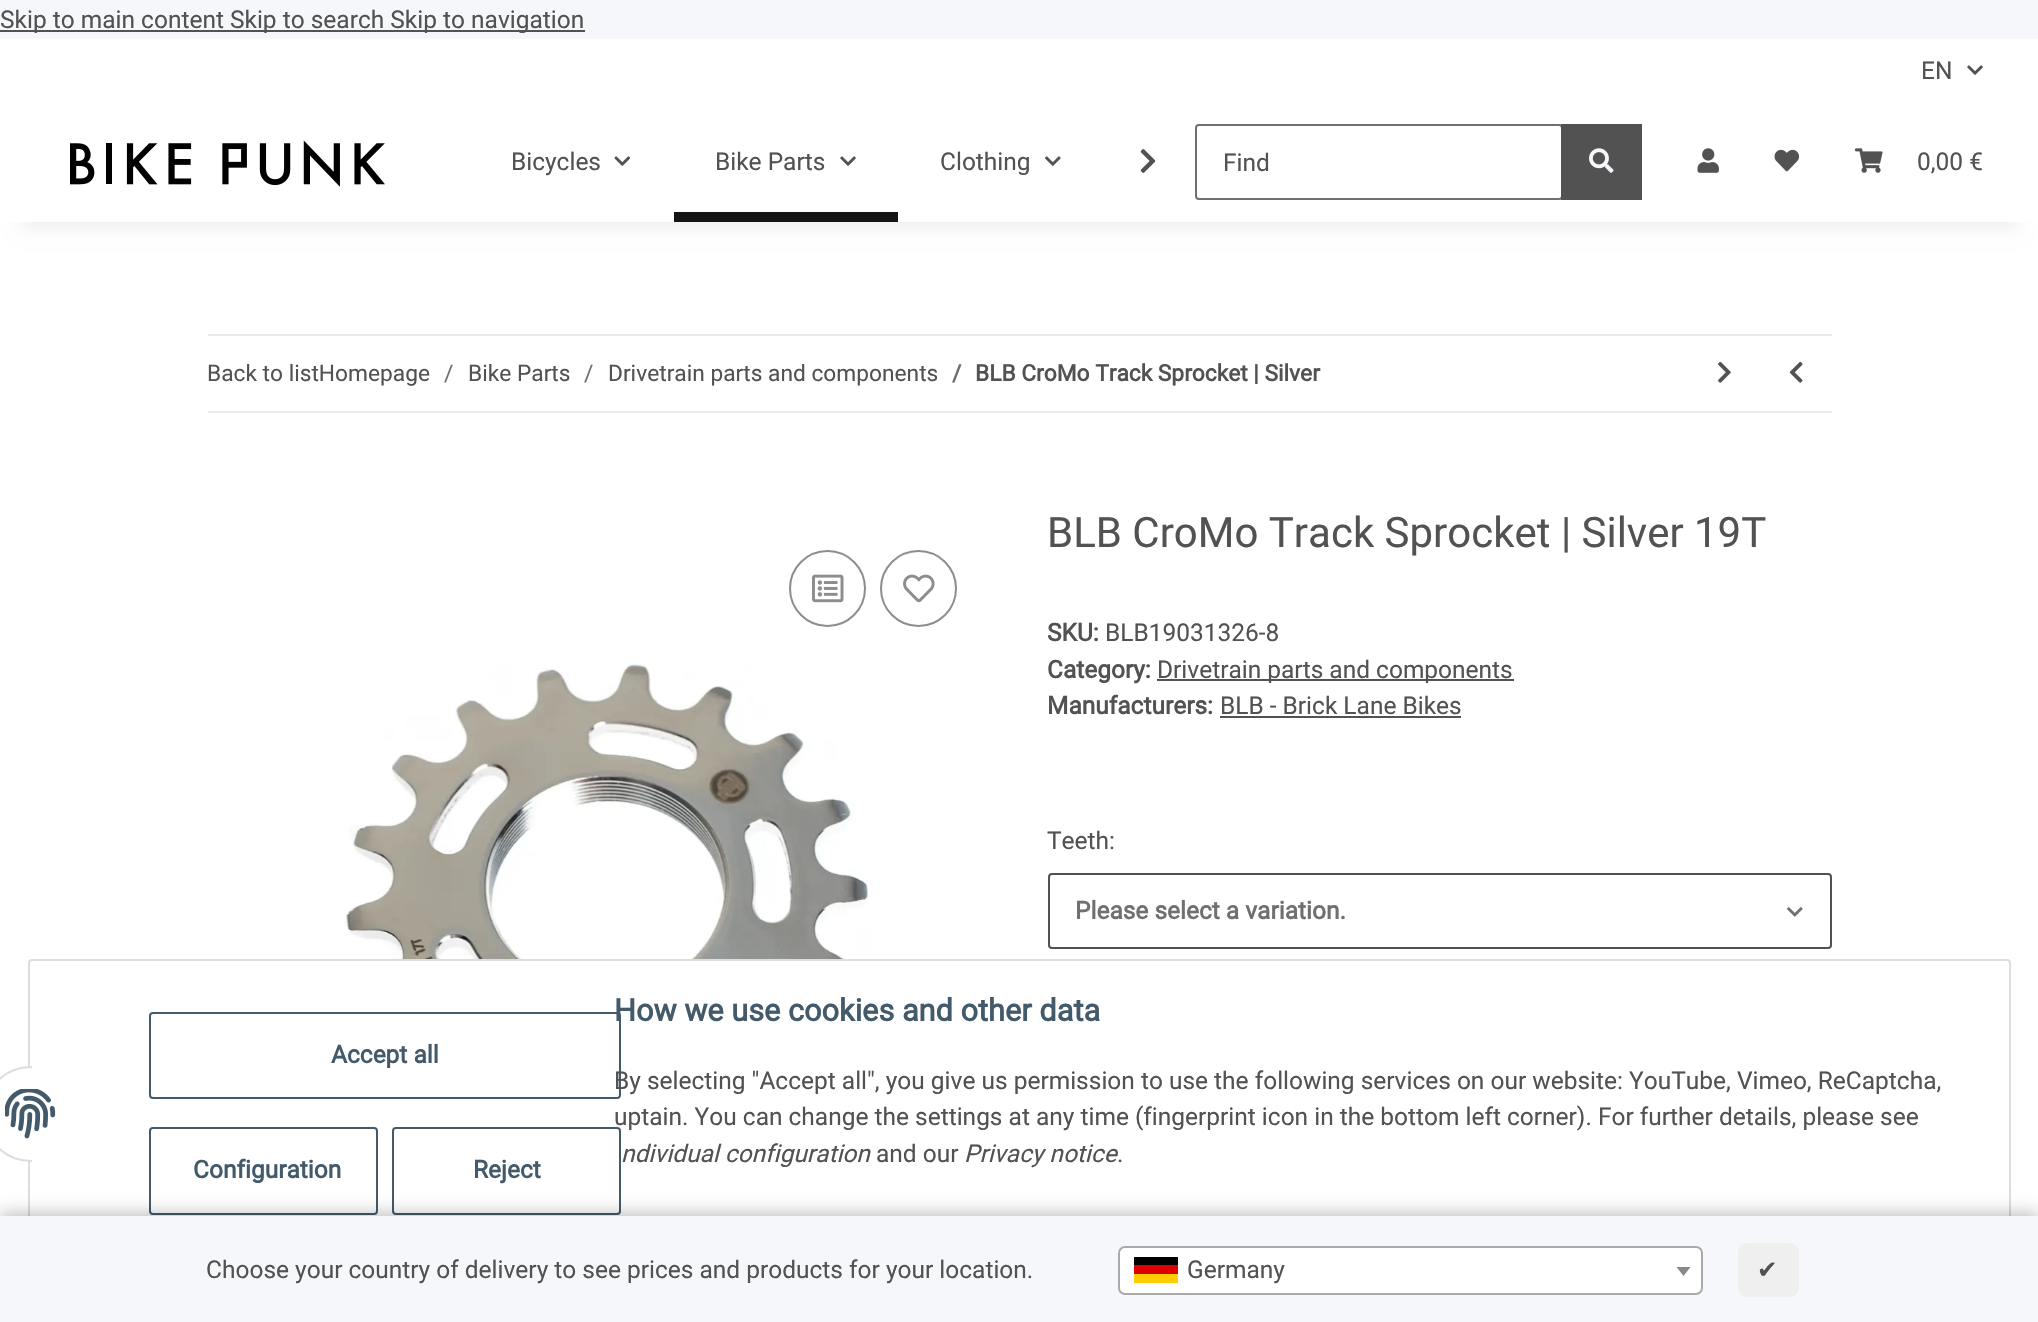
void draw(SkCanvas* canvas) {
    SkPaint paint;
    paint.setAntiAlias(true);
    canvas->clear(0xFFF5F7FA);
    paint.setColor(0xFF525252);
    canvas->drawRect(SkRect::MakeXYWH(0, 30, 585, 2), paint);
    SkFont font1(fontMgr->matchFamilyStyle("Roboto", SkFontStyle::Normal()), 24.5f);
    font1.setSubpixel(true);
    canvas->drawString("Skip to main content Skip to search Skip to navigation", 0, 28, font1, paint);
    paint.setColor(0xFFFFFFFF);
    canvas->drawRect(SkRect::MakeXYWH(0, 222, 2038, 994), paint);
    paint.setColor(0x0F000000);
    paint.setMaskFilter(SkMaskFilter::MakeBlur(kNormal_SkBlurStyle, 8));
    canvas->drawRect(SkRect::MakeXYWH(21, 152, 1997, 77), paint);
    paint.setMaskFilter(nullptr);
    paint.setColor(0xFFFFFFFF);
    canvas->drawRect(SkRect::MakeXYWH(0, 39, 2038, 183), paint);
    paint.setColor(0xFF525252);
    canvas->drawString("EN", 1921, 79, font1, paint);
    canvas->drawImageRect(SkImages::DeferredFromEncodedData(SkData::MakeFromFileName("img1.png")), SkRect::MakeXYWH(1967, 65, 16, 10), SkSamplingOptions());
    canvas->drawImageRect(SkImages::DeferredFromEncodedData(SkData::MakeFromFileName("img2.png")), SkRect::MakeXYWH(70, 140, 315, 47), SkSamplingOptions());
    canvas->drawString("Bicycles", 511, 170, font1, paint);
    canvas->drawImageRect(SkImages::DeferredFromEncodedData(SkData::MakeFromFileName("img3.png")), SkRect::MakeXYWH(614, 156, 16, 10), SkSamplingOptions());
    canvas->drawString("Bike Parts", 715, 170, font1, paint);
    canvas->drawImageRect(SkImages::DeferredFromEncodedData(SkData::MakeFromFileName("img1.png")), SkRect::MakeXYWH(840, 156, 16, 10), SkSamplingOptions());
    paint.setColor(0xFF141414);
    canvas->drawRect(SkRect::MakeXYWH(674, 212, 224, 10), paint);
    paint.setColor(0xFF525252);
    canvas->drawString("Clothing", 940, 170, font1, paint);
    canvas->drawImageRect(SkImages::DeferredFromEncodedData(SkData::MakeFromFileName("img4.png")), SkRect::MakeXYWH(1045, 156, 16, 10), SkSamplingOptions());
    canvas->drawImageRect(SkImages::DeferredFromEncodedData(SkData::MakeFromFileName("img5.png")), SkRect::MakeXYWH(1140, 149, 16, 24), SkSamplingOptions());
    paint.setStyle(SkPaint::kStroke_Style);
    paint.setStrokeWidth(2);
    paint.setColor(0xFF707070);
    canvas->drawRoundRect(SkRect::MakeXYWH(1196, 125, 366, 74), 3, 3, paint);
    paint.setStyle(SkPaint::kFill_Style);
    paint.setColor(0xFF525252);
    canvas->drawString("Find", 1223, 171, font1, paint);
    canvas->drawRect(SkRect::MakeXYWH(1561, 124, 81, 76), paint);
    canvas->drawImageRect(SkImages::DeferredFromEncodedData(SkData::MakeFromFileName("img6.png")), SkRect::MakeXYWH(1589, 148, 25, 25), SkSamplingOptions());
    canvas->drawImageRect(SkImages::DeferredFromEncodedData(SkData::MakeFromFileName("img7.png")), SkRect::MakeXYWH(1697, 148, 22, 25), SkSamplingOptions());
    canvas->drawImageRect(SkImages::DeferredFromEncodedData(SkData::MakeFromFileName("img8.png")), SkRect::MakeXYWH(1774, 149, 26, 23), SkSamplingOptions());
    canvas->drawImageRect(SkImages::DeferredFromEncodedData(SkData::MakeFromFileName("img9.png")), SkRect::MakeXYWH(1855, 148, 28, 25), SkSamplingOptions());
    canvas->drawString("0,00 €", 1917, 170, font1, paint);
    paint.setColor(0xFFEBEBEB);
    canvas->drawRect(SkRect::MakeXYWH(208, 334, 1624, 2), paint);
    canvas->drawRect(SkRect::MakeXYWH(208, 411, 1624, 2), paint);
    SkFont font2(fontMgr->matchFamilyStyle("Roboto", SkFontStyle::Normal()), 22.75f);
    font2.setSubpixel(true);
    paint.setColor(0xFF525252);
    canvas->drawString("Back to listHomepage", 207, 381, font2, paint);
    paint.setColor(0xFF707070);
    canvas->drawString("/", 444, 381, font2, paint);
    paint.setColor(0xFF525252);
    canvas->drawString("Bike Parts", 468, 381, font2, paint);
    paint.setColor(0xFF707070);
    canvas->drawString("/", 584, 381, font2, paint);
    paint.setColor(0xFF525252);
    canvas->drawString("Drivetrain parts and components", 608, 381, font2, paint);
    SkFont font3(fontMgr->matchFamilyStyle("Roboto", SkFontStyle::Bold()), 22.75f);
    font3.setSubpixel(true);
    paint.setColor(0xFF707070);
    canvas->drawString("/", 952, 381, font3, paint);
    paint.setColor(0xFF525252);
    canvas->drawString("BLB CroMo Track Sprocket | Silver", 975, 381, font3, paint);
    canvas->drawImageRect(SkImages::DeferredFromEncodedData(SkData::MakeFromFileName("img10.png")), SkRect::MakeXYWH(1718, 361, 13, 22), SkSamplingOptions());
    canvas->drawImageRect(SkImages::DeferredFromEncodedData(SkData::MakeFromFileName("img11.png")), SkRect::MakeXYWH(1789, 361, 14, 22), SkSamplingOptions());
    paint.setStyle(SkPaint::kStroke_Style);
    paint.setColor(0xFF8D8D8D);
    canvas->drawCircle(827.5f, 588.5f, 37.5f, paint);
    canvas->drawImageRect(SkImages::DeferredFromEncodedData(SkData::MakeFromFileName("img12.png")), SkRect::MakeXYWH(812, 574, 32, 29), SkSamplingOptions());
    canvas->drawCircle(918.5f, 588.5f, 37.5f, paint);
    canvas->drawImageRect(SkImages::DeferredFromEncodedData(SkData::MakeFromFileName("img13.png")), SkRect::MakeXYWH(903, 574, 32, 29), SkSamplingOptions());
    canvas->drawImageRect(SkImages::DeferredFromEncodedData(SkData::MakeFromFileName("img14.png")), SkRect::MakeXYWH(344, 664, 526, 295), SkSamplingOptions());
    SkFont font4(fontMgr->matchFamilyStyle("Roboto", SkFontStyle::Normal()), 42);
    font4.setSubpixel(true);
    paint.setStyle(SkPaint::kFill_Style);
    paint.setColor(0xFF525252);
    canvas->drawString("BLB CroMo Track Sprocket | Silver 19T", 1047, 547, font4, paint);
    SkFont font5(fontMgr->matchFamilyStyle("Roboto", SkFontStyle::Bold()), 24.5f);
    font5.setSubpixel(true);
    canvas->drawString("SKU:", 1047, 641, font5, paint);
    canvas->drawString("BLB19031326-8", 1105, 641, font1, paint);
    canvas->drawString("Category:", 1047, 678, font5, paint);
    canvas->drawRect(SkRect::MakeXYWH(1157, 679, 357, 2), paint);
    canvas->drawString("Drivetrain parts and components", 1157, 678, font1, paint);
    canvas->drawString("Manufacturers:", 1047, 714, font5, paint);
    canvas->drawString("BLB - Brick Lane Bikes", 1220, 714, font1, paint);
    canvas->drawRect(SkRect::MakeXYWH(1220, 716, 241, 2), paint);
    canvas->drawString("Teeth:", 1047, 849, font1, paint);
    paint.setStyle(SkPaint::kStroke_Style);
    canvas->drawRoundRect(SkRect::MakeXYWH(1049, 874, 782, 74), 3, 3, paint);
    paint.setStyle(SkPaint::kFill_Style);
    paint.setColor(0xFF707070);
    canvas->drawString("Please select a variation.", 1075, 919, font5, paint);
    canvas->drawImageRect(SkImages::DeferredFromEncodedData(SkData::MakeFromFileName("img15.png")), SkRect::MakeXYWH(1787, 907, 16, 10), SkSamplingOptions());
    paint.setColor(0xFFFFFFFF);
    canvas->drawRoundRect(SkRect::MakeXYWH(29, 960, 1981, 306), 3, 3, paint);
    paint.setStyle(SkPaint::kStroke_Style);
    paint.setColor(0xFFDDDDDD);
    canvas->drawRoundRect(SkRect::MakeXYWH(29, 960, 1981, 306), 3, 3, paint);
    paint.setStyle(SkPaint::kFill_Style);
    paint.setColor(0xFFFFFFFF);
    canvas->drawCircle(31, 1114, 47, paint);
    paint.setStyle(SkPaint::kStroke_Style);
    paint.setColor(0xFFDDDDDD);
    canvas->drawCircle(31, 1114, 47, paint);
    paint.setStyle(SkPaint::kFill_Style);
    paint.setColor(0xFFFFFFFF);
    canvas->drawRect(SkRect::MakeXYWH(32, 1066, 47, 96), paint);
    canvas->drawImageRect(SkImages::DeferredFromEncodedData(SkData::MakeFromFileName("img16.png")), SkRect::MakeXYWH(5, 1089, 51, 50), SkSamplingOptions());
    paint.setStyle(SkPaint::kStroke_Style);
    paint.setColor(0xFF435A6B);
    canvas->drawRoundRect(SkRect::MakeXYWH(150, 1013, 470, 85), 3, 3, paint);
    paint.setStyle(SkPaint::kFill_Style);
    canvas->drawString("Accept all", 331, 1063, font5, paint);
    paint.setStyle(SkPaint::kStroke_Style);
    canvas->drawRoundRect(SkRect::MakeXYWH(150, 1128, 227, 86), 3, 3, paint);
    paint.setStyle(SkPaint::kFill_Style);
    canvas->drawString("Configuration", 193, 1178, font5, paint);
    paint.setStyle(SkPaint::kStroke_Style);
    canvas->drawRoundRect(SkRect::MakeXYWH(393, 1128, 227, 86), 3, 3, paint);
    paint.setStyle(SkPaint::kFill_Style);
    canvas->drawString("Reject", 473, 1178, font5, paint);
    SkFont font6(fontMgr->matchFamilyStyle("Roboto", SkFontStyle::Bold()), 30.75f);
    font6.setSubpixel(true);
    canvas->drawString("How we use cookies and other data", 614, 1021, font6, paint);
    paint.setColor(0xFF525252);
    canvas->drawString("By selecting \"Accept all\", you give us permission to use the following services on our website: YouTube, Vimeo, ReCaptcha,", 614, 1089, font1, paint);
    canvas->drawString("uptain. You can change the settings at any time (fingerprint icon in the bottom left corner). For further details, please see", 614, 1125, font1, paint);
    SkFont font7(fontMgr->matchFamilyStyle("Roboto", SkFontStyle::Italic()), 24.5f);
    font7.setSubpixel(true);
    canvas->drawString("ndividual configuration", 621, 1162, font7, paint);
    canvas->drawString("and our", 876, 1162, font1, paint);
    canvas->drawString("Privacy notice", 964, 1162, font7, paint);
    canvas->drawString(".", 1117, 1162, font1, paint);
    paint.setColor(0x40000000);
    paint.setMaskFilter(SkMaskFilter::MakeBlur(kNormal_SkBlurStyle, 8));
    canvas->drawRect(SkRect::MakeXYWH(0, 1213, 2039, 107), paint);
    paint.setMaskFilter(nullptr);
    paint.setColor(0xFFF5F7FA);
    canvas->drawRect(SkRect::MakeXYWH(0, 1216, 2038, 106), paint);
    paint.setColor(0xFF525252);
    canvas->drawString("Choose your country of delivery to see prices and products for your location.", 206, 1278, font1, paint);
    paint.setColor(0xFFFFFFFF);
    canvas->drawRoundRect(SkRect::MakeXYWH(1119, 1247, 583, 47), 6, 6, paint);
    paint.setStyle(SkPaint::kStroke_Style);
    paint.setColor(0xFFAAAAAA);
    canvas->drawRoundRect(SkRect::MakeXYWH(1119, 1247, 583, 47), 6, 6, paint);
    paint.setStyle(SkPaint::kFill_Style);
    paint.setColor(0xFF000000);
    canvas->drawRect(SkRect::MakeXYWH(1134, 1257, 44, 8), paint);
    paint.setColor(0xFFDD0000);
    canvas->drawRect(SkRect::MakeXYWH(1134, 1265, 44, 9), paint);
    paint.setColor(0xFFFFCE00);
    canvas->drawRect(SkRect::MakeXYWH(1134, 1274, 44, 9), paint);
    paint.setColor(0xFF525252);
    canvas->drawString("Germany", 1187, 1278, font1, paint);
    paint.setColor(0xFF888888);
    canvas->drawPath(SkPathBuilder().moveTo(1676.5f, 1267).lineTo(1690.5f, 1267).lineTo(1683.5f, 1276).close().detach(), paint);
    paint.setColor(0xFFEFEFEF);
    canvas->drawRoundRect(SkRect::MakeXYWH(1738, 1243, 61, 54), 9, 9, paint);
    SkFont font8(fontMgr->matchFamilyStyle("DejaVu Sans", SkFontStyle::Normal()), 24.5f);
    font8.setSubpixel(true);
    paint.setColor(0xFF525252);
    canvas->drawString("✔", 1757, 1278, font8, paint);
}
